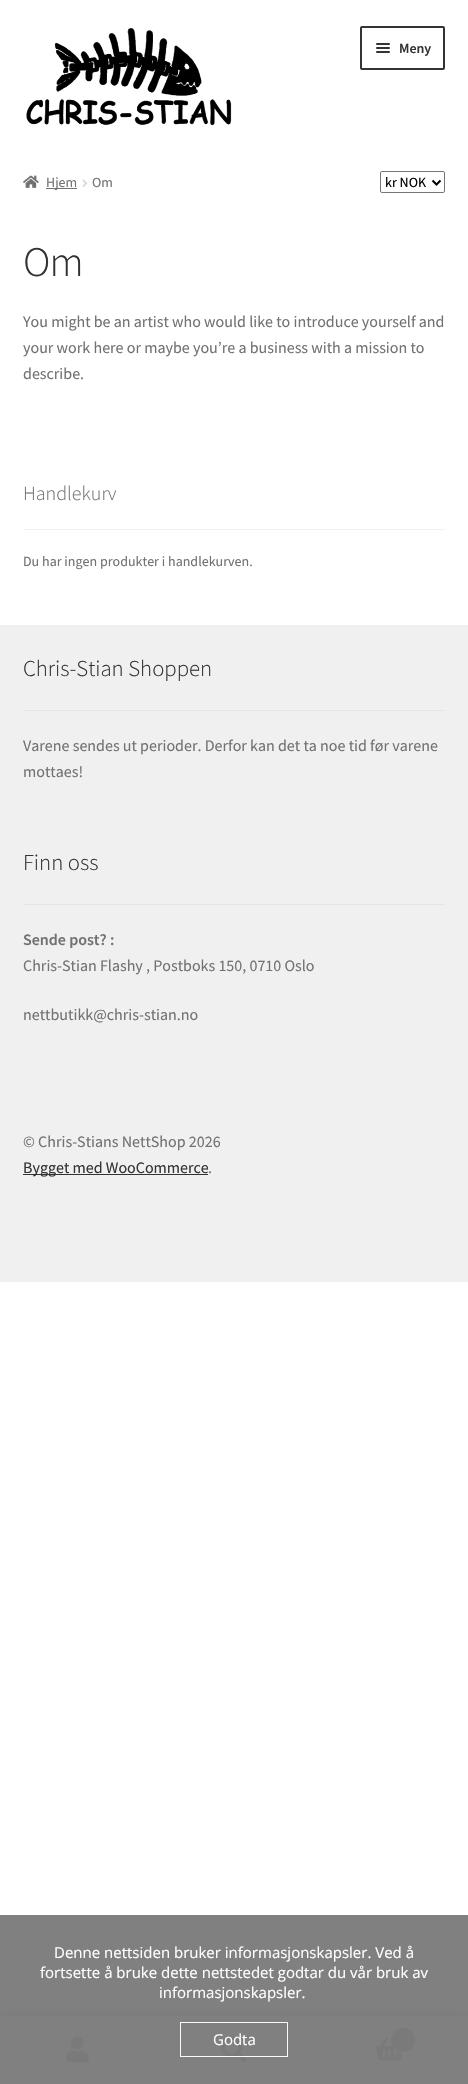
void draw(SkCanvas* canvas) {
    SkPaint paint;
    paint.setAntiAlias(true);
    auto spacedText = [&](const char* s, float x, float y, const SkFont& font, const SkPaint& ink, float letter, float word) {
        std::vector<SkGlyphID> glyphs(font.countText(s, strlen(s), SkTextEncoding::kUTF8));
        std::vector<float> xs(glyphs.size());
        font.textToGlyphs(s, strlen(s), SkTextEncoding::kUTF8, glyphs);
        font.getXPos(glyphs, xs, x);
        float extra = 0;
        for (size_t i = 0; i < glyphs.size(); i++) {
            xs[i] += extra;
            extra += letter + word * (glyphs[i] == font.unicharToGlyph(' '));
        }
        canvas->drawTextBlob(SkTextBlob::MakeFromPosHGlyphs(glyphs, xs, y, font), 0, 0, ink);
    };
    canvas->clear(0xFFFFFFFF);
    paint.setColor(0xFF808080);
    canvas->drawRect(SkRect::MakeXYWH(0, 1915, 468, 101), paint);
    canvas->drawImageRect(SkImages::DeferredFromEncodedData(SkData::MakeFromFileName("img1.png")), SkRect::MakeXYWH(26, 27, 206, 99), SkSamplingOptions());
    paint.setStyle(SkPaint::kStroke_Style);
    paint.setStrokeWidth(2);
    paint.setColor(0xFF333333);
    canvas->drawRoundRect(SkRect::MakeXYWH(361, 27, 83, 42), 1, 1, paint);
    paint.setStyle(SkPaint::kFill_Style);
    canvas->drawRoundRect(SkRect::MakeXYWH(376, 43, 14, 2), 1, 1, paint);
    canvas->drawRoundRect(SkRect::MakeXYWH(376, 47, 14, 2), 1, 1, paint);
    SkFont font1(fontMgr->matchFamilyStyle("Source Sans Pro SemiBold", SkFontStyle(600, SkFontStyle::kNormal_Width, SkFontStyle::kUpright_Slant)), 14);
    font1.setSubpixel(true);
    canvas->drawString("Meny", 399, 53, font1, paint);
    canvas->drawRoundRect(SkRect::MakeXYWH(376, 51, 14, 2), 1, 1, paint);
    canvas->drawImageRect(SkImages::DeferredFromEncodedData(SkData::MakeFromFileName("img2.png")), SkRect::MakeXYWH(23, 175, 16, 13), SkSamplingOptions());
    paint.setColor(0xFF727272);
    canvas->drawRect(SkRect::MakeXYWH(46, 188, 31, 1), paint);
    SkFont font2(fontMgr->matchFamilyStyle("Source Sans Pro", SkFontStyle::Normal()), 14);
    font2.setSubpixel(true);
    canvas->drawString("Hjem", 46, 187, font2, paint);
    canvas->drawImageRect(SkImages::DeferredFromEncodedData(SkData::MakeFromFileName("img3.png")), SkRect::MakeXYWH(82, 179, 6, 8), SkSamplingOptions());
    canvas->drawString("Om", 92, 187, font2, paint);
    paint.setStyle(SkPaint::kStroke_Style);
    paint.setStrokeWidth(1);
    paint.setColor(0xFF767676);
    canvas->drawRoundRect(SkRect::MakeXYWH(380.5f, 171.5f, 64, 21), 1.5f, 1.5f, paint);
    paint.setStrokeWidth(2);
    paint.setColor(0xFF000000);
    canvas->drawPath(SkPathBuilder().moveTo(432.5f, 180.5f).lineTo(436.5f, 184.5f).lineTo(440.5f, 180.5f).detach(), paint);
    paint.setStyle(SkPaint::kFill_Style);
    canvas->drawString("kr NOK", 385, 187, font2, paint);
    SkFont font3(fontMgr->matchFamilyStyle("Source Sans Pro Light", SkFontStyle(300, SkFontStyle::kNormal_Width, SkFontStyle::kUpright_Slant)), 42);
    font3.setSubpixel(true);
    paint.setColor(0xFF333333);
    spacedText("Om", 23, 276, font3, paint, -1, 0);
    SkFont font4(fontMgr->matchFamilyStyle("Source Sans Pro", SkFontStyle::Normal()), 16);
    font4.setSubpixel(true);
    paint.setColor(0xFF727272);
    canvas->drawString("You might be an artist who would like to introduce yourself and", 23, 327, font4, paint);
    canvas->drawString("your work here or maybe you’re a business with a mission to", 23, 353, font4, paint);
    canvas->drawString("describe.", 23, 379, font4, paint);
    paint.setColor(0xFFF2F2F2);
    canvas->drawRect(SkRect::MakeXYWH(23, 529, 422, 1), paint);
    SkFont font5(fontMgr->matchFamilyStyle("Source Sans Pro Light", SkFontStyle(300, SkFontStyle::kNormal_Width, SkFontStyle::kUpright_Slant)), 20);
    font5.setSubpixel(true);
    paint.setColor(0xFF727272);
    canvas->drawString("Handlekurv", 23, 500, font5, paint);
    canvas->drawString("Du har ingen produkter i handlekurven.", 23, 566, font2, paint);
    paint.setColor(0xFFF0F0F0);
    canvas->drawRect(SkRect::MakeXYWH(0, 625, 468, 657), paint);
    paint.setColor(0xFFE4E4E4);
    canvas->drawRect(SkRect::MakeXYWH(23, 710, 422, 1), paint);
    SkFont font6(fontMgr->matchFamilyStyle("Source Sans Pro Light", SkFontStyle(300, SkFontStyle::kNormal_Width, SkFontStyle::kUpright_Slant)), 22.75f);
    font6.setSubpixel(true);
    paint.setColor(0xFF333333);
    canvas->drawString("Chris-Stian Shoppen", 23, 676, font6, paint);
    paint.setColor(0xFF727272);
    canvas->drawString("Varene sendes ut perioder. Derfor kan det ta noe tid før varene", 23, 751, font4, paint);
    canvas->drawString("mottaes!", 23, 777, font4, paint);
    paint.setColor(0xFFE4E4E4);
    canvas->drawRect(SkRect::MakeXYWH(23, 904, 422, 1), paint);
    paint.setColor(0xFF333333);
    canvas->drawString("Finn oss", 23, 870, font6, paint);
    SkFont font7(fontMgr->matchFamilyStyle("Source Sans Pro SemiBold", SkFontStyle(600, SkFontStyle::kNormal_Width, SkFontStyle::kUpright_Slant)), 16);
    font7.setSubpixel(true);
    paint.setColor(0xFF727272);
    canvas->drawString("Sende post? :", 23, 945, font7, paint);
    canvas->drawString("Chris-Stian Flashy , Postboks 150, 0710 Oslo", 23, 971, font4, paint);
    canvas->drawString("nettbutikk@chris-stian.no", 23, 1020, font4, paint);
    canvas->drawString("© Chris-Stians NettShop 2026", 23, 1147, font4, paint);
    paint.setColor(0xFF333333);
    canvas->drawRect(SkRect::MakeXYWH(23, 1174, 185, 1), paint);
    canvas->drawString("Bygget med WooCommerce", 23, 1173, font4, paint);
    paint.setColor(0xFF727272);
    canvas->drawString(".", 208, 1173, font4, paint);
    paint.setColor(0xB3787878);
    paint.setMaskFilter(SkMaskFilter::MakeBlur(kNormal_SkBlurStyle, 3));
    canvas->drawRect(SkRect::MakeXYWH(0, 2015, 468, 69), paint);
    paint.setMaskFilter(nullptr);
    paint.setColor(0xFF808080);
    canvas->drawRect(SkRect::MakeXYWH(0, 2016, 468, 68), paint);
    canvas->drawImageRect(SkImages::DeferredFromEncodedData(SkData::MakeFromFileName("img4.png")), SkRect::MakeXYWH(66, 2036, 23, 27), SkSamplingOptions());
    canvas->drawImageRect(SkImages::DeferredFromEncodedData(SkData::MakeFromFileName("img5.png")), SkRect::MakeXYWH(221, 2036, 26, 27), SkSamplingOptions());
    canvas->drawImageRect(SkImages::DeferredFromEncodedData(SkData::MakeFromFileName("img6.png")), SkRect::MakeXYWH(375, 2038, 28, 23), SkSamplingOptions());
    paint.setColor(0xFF7A7A7A);
    canvas->drawCircle(403, 2040, 12.5f, paint);
    paint.setStyle(SkPaint::kStroke_Style);
    paint.setStrokeWidth(1);
    paint.setColor(0xFF808080);
    canvas->drawCircle(403, 2040, 12.5f, paint);
    SkFont font8(fontMgr->matchFamilyStyle("Open Sans", SkFontStyle::Normal()), 15);
    font8.setSubpixel(true);
    paint.setStyle(SkPaint::kFill_Style);
    paint.setColor(0xFFFFFFFF);
    canvas->drawString("Denne nettsiden bruker informasjonskapsler. Ved å", 54, 1958, font8, paint);
    canvas->drawString("fortsette å bruke dette nettstedet godtar du vår bruk av", 40, 1978, font8, paint);
    canvas->drawString("informasjonskapsler.", 159, 1998, font8, paint);
    paint.setStyle(SkPaint::kStroke_Style);
    paint.setColor(0xF7FFFFFF);
    canvas->drawRect(SkRect::MakeXYWH(180.5f, 2022.5f, 107, 34), paint);
    paint.setStyle(SkPaint::kFill_Style);
    paint.setColor(0xFFFFFFFF);
    canvas->drawString("Godta", 213, 2045, font8, paint);
}
